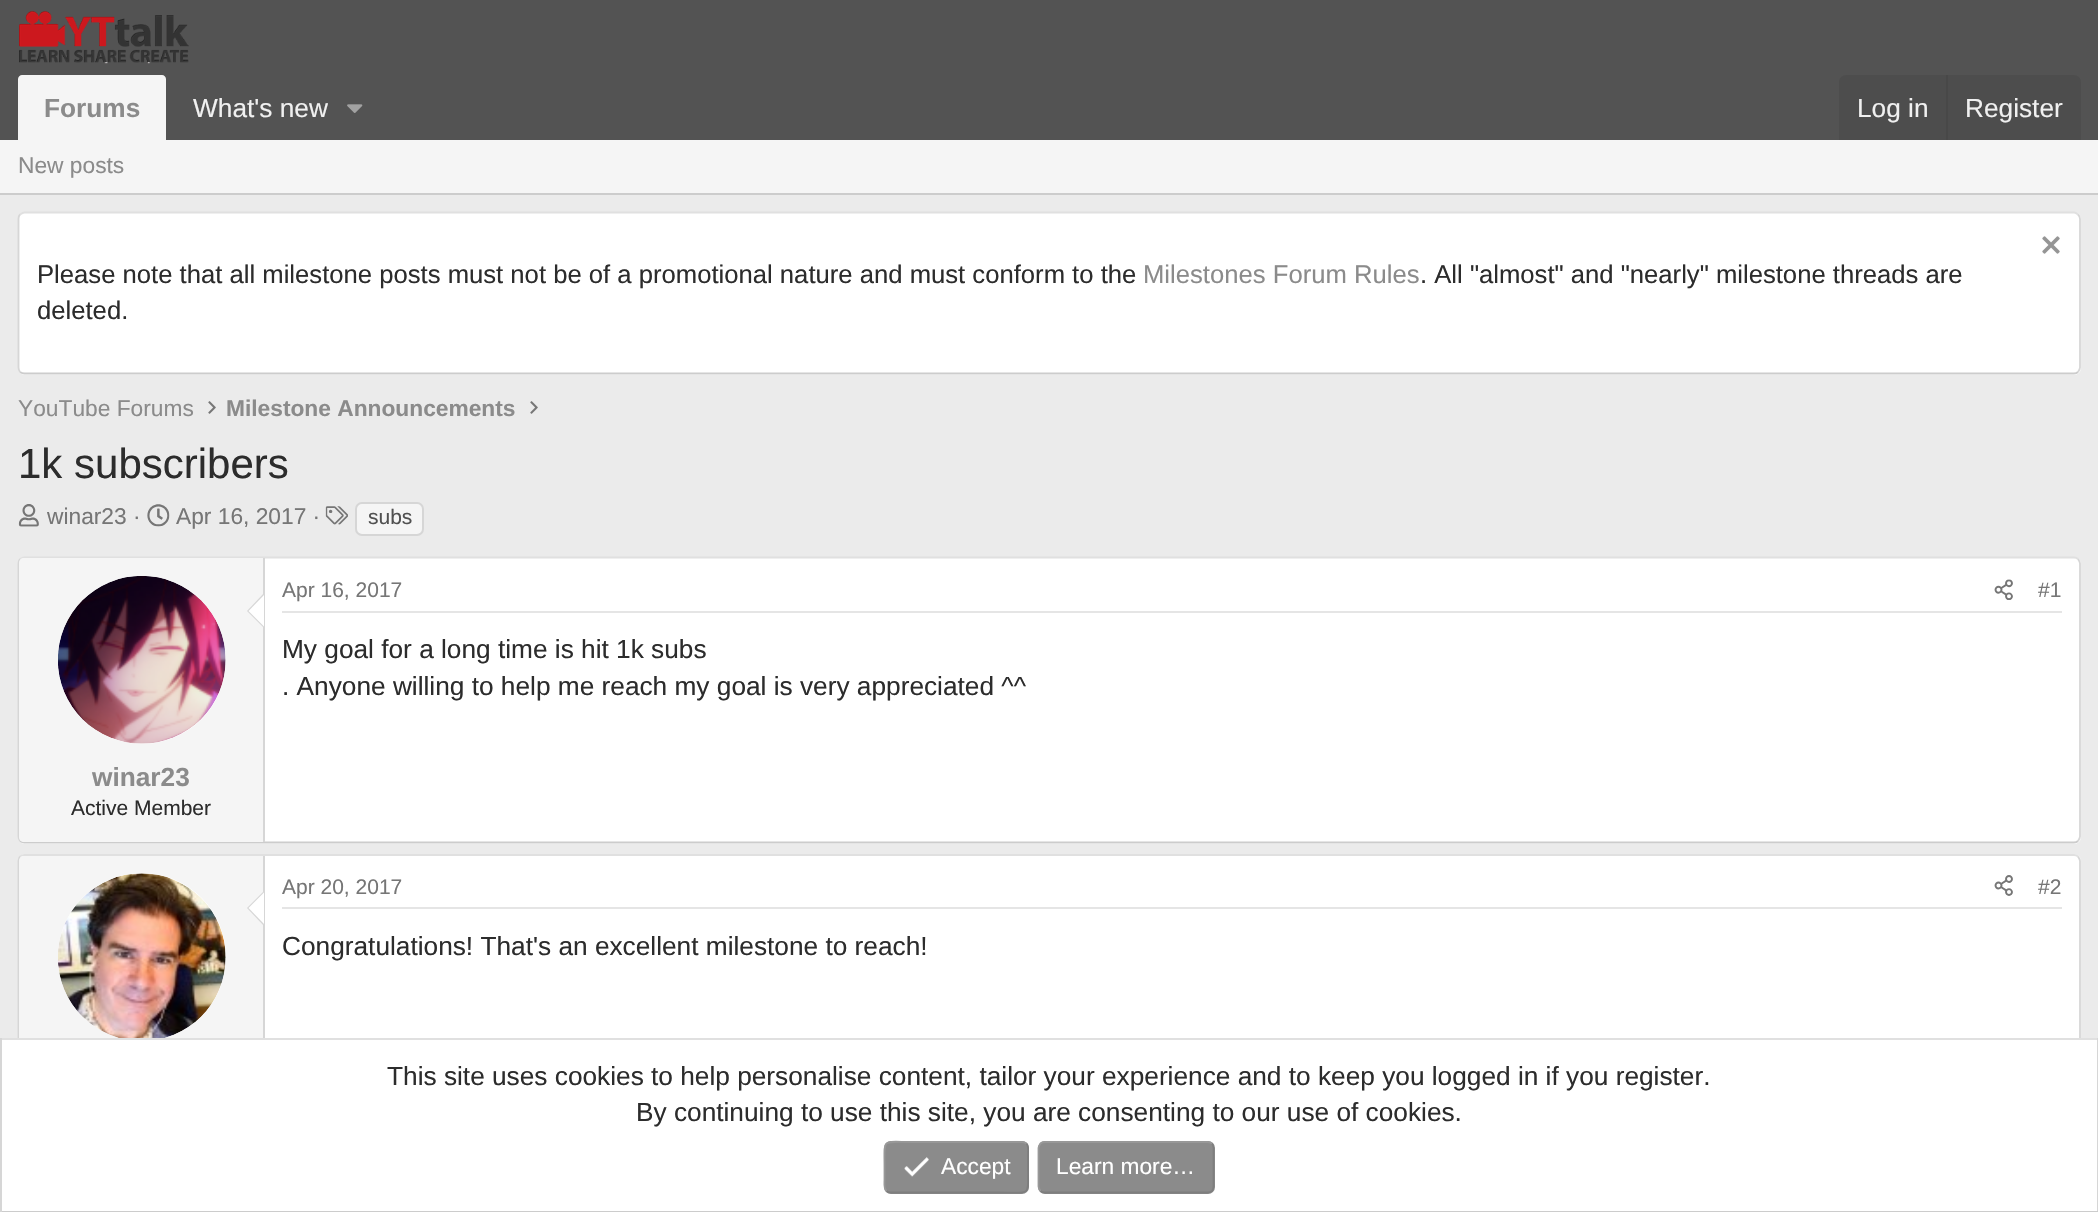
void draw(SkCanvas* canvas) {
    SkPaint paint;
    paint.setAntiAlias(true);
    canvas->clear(0xFFEBEBEB);
    paint.setColor(0xFF535353);
    canvas->drawRect(SkRect::MakeXYWH(0, 0, 2098, 140), paint);
    canvas->drawImageRect(SkImages::DeferredFromEncodedData(SkData::MakeFromFileName("img1.png")), SkRect::MakeXYWH(19, 11, 170, 53), SkSamplingOptions());
    paint.setColor(0xFFF5F5F5);
    canvas->drawPath(SkPathBuilder().moveTo(22, 75).lineTo(162, 75).cubicTo(164, 75, 166, 77, 166, 79).lineTo(166, 140).lineTo(18, 140).lineTo(18, 79).cubicTo(18, 77, 20, 75, 22, 75).close().detach(), paint);
    SkFont font1(fontMgr->matchFamilyStyle("Liberation Sans", SkFontStyle::Bold()), 26.25f);
    font1.setSubpixel(true);
    paint.setColor(0xFF8B8B8B);
    canvas->drawString("Forums", 44, 117, font1, paint);
    SkFont font2(fontMgr->matchFamilyStyle("Liberation Sans", SkFontStyle::Normal()), 26.25f);
    font2.setSubpixel(true);
    paint.setColor(0xFFF0F0F0);
    canvas->drawString("What's new", 193, 117, font2, paint);
    canvas->drawImageRect(SkImages::DeferredFromEncodedData(SkData::MakeFromFileName("img2.png")), SkRect::MakeXYWH(347, 104, 16, 9), SkSamplingOptions());
    paint.setColor(0xFF4D4D4D);
    canvas->drawPath(SkPathBuilder().moveTo(1846, 75).lineTo(2074, 75).cubicTo(2078, 75, 2081, 78, 2081, 82).lineTo(2081, 140).lineTo(1839, 140).lineTo(1839, 82).cubicTo(1839, 78, 1842, 75, 1846, 75).close().detach(), paint);
    paint.setColor(0xFFF0F0F0);
    canvas->drawString("Log in", 1857, 117, font2, paint);
    paint.setColor(0xFF484848);
    canvas->drawRect(SkRect::MakeXYWH(1946, 75, 2, 65), paint);
    paint.setColor(0xFFF0F0F0);
    canvas->drawString("Register", 1965, 117, font2, paint);
    paint.setColor(0xFFF5F5F5);
    canvas->drawRect(SkRect::MakeXYWH(0, 140, 2098, 53), paint);
    paint.setColor(0xFFCCCCCC);
    canvas->drawRect(SkRect::MakeXYWH(0, 193, 2098, 2), paint);
    SkFont font3(fontMgr->matchFamilyStyle("Liberation Sans", SkFontStyle::Normal()), 22.75f);
    font3.setSubpixel(true);
    paint.setColor(0xFF8B8B8B);
    canvas->drawString("New posts", 18, 173, font3, paint);
    paint.setColor(0xFFFFFFFF);
    canvas->drawRoundRect(SkRect::MakeXYWH(18, 212, 2063, 163), 7, 7, paint);
    paint.setStyle(SkPaint::kStroke_Style);
    paint.setStrokeWidth(1.8f);
    paint.setColor(0xFFE0E0E0);
    canvas->drawPath(SkPathBuilder().moveTo(20, 214.5f).cubicTo(21.5f, 213.5f, 23, 212.5f, 24.5f, 212.5f).lineTo(2074, 212.5f).cubicTo(2075.5f, 212.5f, 2077, 213.5f, 2078, 214.5f).detach(), paint);
    paint.setColor(0xFFD6D6D6);
    canvas->drawPath(SkPathBuilder().moveTo(2078, 214.5f).cubicTo(2079, 215.5f, 2080, 217, 2080, 219).lineTo(2080, 367.5f).cubicTo(2080, 369, 2079, 370.5f, 2078, 372).detach(), paint);
    paint.setColor(0xFFCCCCCC);
    canvas->drawPath(SkPathBuilder().moveTo(2078, 372).cubicTo(2077, 373, 2075.5f, 373.5f, 2074, 373.5f).lineTo(24.5f, 373.5f).cubicTo(23, 373.5f, 21.5f, 373, 20, 372).detach(), paint);
    paint.setColor(0xFFD6D6D6);
    canvas->drawPath(SkPathBuilder().moveTo(20, 372).cubicTo(19, 370.5f, 18.5f, 369, 18.5f, 367.5f).lineTo(18.5f, 219).cubicTo(18.5f, 217, 19, 215.5f, 20, 214.5f).detach(), paint);
    canvas->drawImageRect(SkImages::DeferredFromEncodedData(SkData::MakeFromFileName("img3.png")), SkRect::MakeXYWH(2042, 236, 18, 18), SkSamplingOptions());
    SkFont font4(fontMgr->matchFamilyStyle("Liberation Sans", SkFontStyle::Normal()), 25.65f);
    font4.setSubpixel(true);
    paint.setStyle(SkPaint::kFill_Style);
    paint.setColor(0xFF2C2C2C);
    canvas->drawString("Please note that all milestone posts must not be of a promotional nature and must conform to the", 37, 283, font4, paint);
    paint.setColor(0xFF8B8B8B);
    canvas->drawString("Milestones Forum Rules", 1143, 283, font4, paint);
    paint.setColor(0xFF2C2C2C);
    canvas->drawString(". All \"almost\" and \"nearly\" milestone threads are", 1420, 283, font4, paint);
    canvas->drawString("deleted.", 37, 319, font4, paint);
    paint.setColor(0xFF8B8B8B);
    canvas->drawString("YouTube Forums", 18, 416, font3, paint);
    canvas->drawImageRect(SkImages::DeferredFromEncodedData(SkData::MakeFromFileName("img4.png")), SkRect::MakeXYWH(208, 401, 8, 13), SkSamplingOptions());
    SkFont font5(fontMgr->matchFamilyStyle("Liberation Sans", SkFontStyle::Bold()), 22.75f);
    font5.setSubpixel(true);
    canvas->drawString("Milestone Announcements", 226, 416, font5, paint);
    canvas->drawImageRect(SkImages::DeferredFromEncodedData(SkData::MakeFromFileName("img4.png")), SkRect::MakeXYWH(530, 401, 8, 13), SkSamplingOptions());
    SkFont font6(fontMgr->matchFamilyStyle("Liberation Sans", SkFontStyle::Normal()), 42);
    font6.setSubpixel(true);
    paint.setColor(0xFF2C2C2C);
    canvas->drawString("1k subscribers", 18, 478, font6, paint);
    canvas->drawImageRect(SkImages::DeferredFromEncodedData(SkData::MakeFromFileName("img5.png")), SkRect::MakeXYWH(18, 504, 21, 23), SkSamplingOptions());
    paint.setColor(0xFF767676);
    canvas->drawString("winar23 ·", 47, 524, font3, paint);
    canvas->drawImageRect(SkImages::DeferredFromEncodedData(SkData::MakeFromFileName("img6.png")), SkRect::MakeXYWH(147, 504, 23, 23), SkSamplingOptions());
    canvas->drawString("Apr 16, 2017 ·", 176, 524, font3, paint);
    canvas->drawImageRect(SkImages::DeferredFromEncodedData(SkData::MakeFromFileName("img7.png")), SkRect::MakeXYWH(325, 506, 23, 19), SkSamplingOptions());
    paint.setColor(0xFFF5F5F5);
    canvas->drawRoundRect(SkRect::MakeXYWH(356, 503, 67, 32), 6, 6, paint);
    paint.setStyle(SkPaint::kStroke_Style);
    paint.setStrokeWidth(2);
    paint.setColor(0xFFD6D6D6);
    canvas->drawRoundRect(SkRect::MakeXYWH(356, 503, 67, 32), 6, 6, paint);
    SkFont font7(fontMgr->matchFamilyStyle("Liberation Sans", SkFontStyle::Normal()), 21);
    font7.setSubpixel(true);
    paint.setStyle(SkPaint::kFill_Style);
    paint.setColor(0xFF515151);
    canvas->drawString("subs", 368, 524, font7, paint);
    paint.setColor(0xFFFFFFFF);
    canvas->drawRoundRect(SkRect::MakeXYWH(18, 557, 2063, 287), 7, 7, paint);
    paint.setStyle(SkPaint::kStroke_Style);
    paint.setStrokeWidth(1.8f);
    paint.setColor(0xFFE0E0E0);
    canvas->drawPath(SkPathBuilder().moveTo(20, 559).cubicTo(21.5f, 558, 23, 557.5f, 24.5f, 557.5f).lineTo(2074, 557.5f).cubicTo(2075.5f, 557.5f, 2077, 558, 2078, 559).detach(), paint);
    paint.setColor(0xFFD6D6D6);
    canvas->drawPath(SkPathBuilder().moveTo(2078, 559).cubicTo(2079, 560.5f, 2080, 562, 2080, 563.5f).lineTo(2080, 836.5f).cubicTo(2080, 838, 2079, 839.5f, 2078, 841).detach(), paint);
    paint.setColor(0xFFCCCCCC);
    canvas->drawPath(SkPathBuilder().moveTo(2078, 841).cubicTo(2077, 842, 2075.5f, 842.5f, 2074, 842.5f).lineTo(24.5f, 842.5f).cubicTo(23, 842.5f, 21.5f, 842, 20, 841).detach(), paint);
    paint.setColor(0xFFD6D6D6);
    canvas->drawPath(SkPathBuilder().moveTo(20, 841).cubicTo(19, 839.5f, 18.5f, 838, 18.5f, 836.5f).lineTo(18.5f, 563.5f).cubicTo(18.5f, 562, 19, 560.5f, 20, 559).detach(), paint);
    paint.setStyle(SkPaint::kFill_Style);
    paint.setColor(0xFFE5E5E5);
    canvas->drawRect(SkRect::MakeXYWH(282, 611, 1780, 2), paint);
    paint.setColor(0xFF767676);
    canvas->drawString("Apr 16, 2017", 282, 597, font7, paint);
    canvas->drawImageRect(SkImages::DeferredFromEncodedData(SkData::MakeFromFileName("img8.png")), SkRect::MakeXYWH(1994, 579, 19, 21), SkSamplingOptions());
    canvas->drawString("#1", 2038, 597, font7, paint);
    paint.setColor(0xFF2C2C2C);
    canvas->drawString("My goal for a long time is hit 1k subs", 282, 658, font2, paint);
    canvas->drawString(". Anyone willing to help me reach my goal is very appreciated ^^", 282, 695, font2, paint);
    paint.setColor(0xFFF5F5F5);
    canvas->drawPath(SkPathBuilder().moveTo(24, 558).lineTo(264, 558).lineTo(264, 842).lineTo(24, 842).cubicTo(21, 842, 19, 840, 19, 837).lineTo(19, 563).cubicTo(19, 560, 21, 558, 24, 558).close().detach(), paint);
    paint.setColor(0xFFD6D6D6);
    canvas->drawRect(SkRect::MakeXYWH(263, 558, 2, 284), paint);
    paint.setColor(0xFFFFFFFF);
    canvas->drawCircle(142, 660, 84, paint);
    canvas->drawImageRect(SkImages::DeferredFromEncodedData(SkData::MakeFromFileName("img9.png")), SkRect::MakeXYWH(58, 576, 168, 168), SkSamplingOptions());
    paint.setColor(0xFFD6D6D6);
    canvas->drawPath(SkPathBuilder().moveTo(264, 593).lineTo(264, 628).lineTo(247, 611).close().detach(), paint);
    paint.setColor(0xFFFFFFFF);
    canvas->drawPath(SkPathBuilder().moveTo(264, 595).lineTo(264, 626.5f).lineTo(248.5f, 611).close().detach(), paint);
    paint.setColor(0xFF8B8B8B);
    canvas->drawString("winar23", 92, 786, font1, paint);
    paint.setColor(0xFF2C2C2C);
    canvas->drawString("Active Member", 71, 815, font7, paint);
    paint.setColor(0xFFFFFFFF);
    canvas->drawRoundRect(SkRect::MakeXYWH(18, 854, 2063, 285), 7, 7, paint);
    paint.setStyle(SkPaint::kStroke_Style);
    paint.setColor(0xFFE0E0E0);
    canvas->drawPath(SkPathBuilder().moveTo(20, 856.5f).cubicTo(21.5f, 855.5f, 23, 855, 24.5f, 855).lineTo(2074, 855).cubicTo(2075.5f, 855, 2077, 855.5f, 2078, 856.5f).detach(), paint);
    paint.setColor(0xFFD6D6D6);
    canvas->drawPath(SkPathBuilder().moveTo(2078, 856.5f).cubicTo(2079, 858, 2080, 859.5f, 2080, 861).lineTo(2080, 1132).cubicTo(2080, 1134, 2079, 1135.5f, 2078, 1136.5f).detach(), paint);
    canvas->drawPath(SkPathBuilder().moveTo(20, 1136.5f).cubicTo(19, 1135.5f, 18.5f, 1134, 18.5f, 1132).lineTo(18.5f, 861).cubicTo(18.5f, 859.5f, 19, 858, 20, 856.5f).detach(), paint);
    paint.setStyle(SkPaint::kFill_Style);
    paint.setColor(0xFFF5F5F5);
    canvas->drawPath(SkPathBuilder().moveTo(24, 856).lineTo(264, 856).lineTo(264, 1138).lineTo(24, 1138).cubicTo(21, 1138, 19, 1136, 19, 1133).lineTo(19, 861).cubicTo(19, 858, 21, 856, 24, 856).close().detach(), paint);
    paint.setColor(0xFFD6D6D6);
    canvas->drawRect(SkRect::MakeXYWH(263, 856, 2, 182), paint);
    paint.setColor(0xFFFFFFFF);
    canvas->drawCircle(142, 957, 84, paint);
    canvas->drawImageRect(SkImages::DeferredFromEncodedData(SkData::MakeFromFileName("img10.png")), SkRect::MakeXYWH(58, 873, 168, 165), SkSamplingOptions());
    paint.setColor(0xFFD6D6D6);
    canvas->drawPath(SkPathBuilder().moveTo(264, 891).lineTo(264, 926).lineTo(247, 908).close().detach(), paint);
    paint.setColor(0xFFFFFFFF);
    canvas->drawPath(SkPathBuilder().moveTo(264, 892.5f).lineTo(264, 924).lineTo(248.5f, 908).close().detach(), paint);
    paint.setColor(0xFFE5E5E5);
    canvas->drawRect(SkRect::MakeXYWH(282, 907, 1780, 2), paint);
    paint.setColor(0xFF767676);
    canvas->drawString("Apr 20, 2017", 282, 894, font7, paint);
    canvas->drawImageRect(SkImages::DeferredFromEncodedData(SkData::MakeFromFileName("img11.png")), SkRect::MakeXYWH(1994, 875, 19, 21), SkSamplingOptions());
    canvas->drawString("#2", 2038, 894, font7, paint);
    paint.setColor(0xFF2C2C2C);
    canvas->drawString("Congratulations! That's an excellent milestone to reach!", 282, 955, font2, paint);
    paint.setColor(0xFFFFFFFF);
    canvas->drawRect(SkRect::MakeXYWH(2, 1040, 2095, 171), paint);
    paint.setColor(0xFFE0E0E0);
    canvas->drawRect(SkRect::MakeXYWH(0, 1038, 2098, 2), paint);
    paint.setColor(0xFFD6D6D6);
    canvas->drawRect(SkRect::MakeXYWH(2097, 1038, 1, 174), paint);
    paint.setColor(0xFFCCCCCC);
    canvas->drawRect(SkRect::MakeXYWH(0, 1211, 2098, 1), paint);
    paint.setColor(0xFFD6D6D6);
    canvas->drawRect(SkRect::MakeXYWH(0, 1038, 2, 174), paint);
    paint.setColor(0xFF2C2C2C);
    canvas->drawString("This site uses cookies to help personalise content, tailor your experience and to keep you logged in if you register.", 387, 1085, font2, paint);
    canvas->drawString("By continuing to use this site, you are consenting to our use of cookies.", 636, 1121, font2, paint);
    paint.setColor(0xFF8B8B8B);
    canvas->drawRoundRect(SkRect::MakeXYWH(884, 1141, 145, 53), 7, 7, paint);
    paint.setStyle(SkPaint::kStroke_Style);
    paint.setColor(0xFF7E7E7E);
    canvas->drawPath(SkPathBuilder().moveTo(1026.5f, 1143.5f).cubicTo(1029, 1146.5f, 1028, 1151, 1028, 1154.5f).lineTo(1028, 1167).cubicTo(1028, 1197, 1032, 1192.5f, 1000, 1192.5f).lineTo(891, 1192.5f).cubicTo(889, 1192.5f, 887.5f, 1192, 886.5f, 1191).detach(), paint);
    paint.setColor(0xFF989898);
    canvas->drawPath(SkPathBuilder().moveTo(886.5f, 1191).cubicTo(883.5f, 1188, 884.5f, 1183.5f, 884.5f, 1180).lineTo(884.5f, 1167).cubicTo(884.5f, 1137.5f, 881, 1142, 912.5f, 1142).lineTo(1022, 1142).cubicTo(1023.5f, 1142, 1025, 1142.5f, 1026.5f, 1143.5f).detach(), paint);
    canvas->drawImageRect(SkImages::DeferredFromEncodedData(SkData::MakeFromFileName("img12.png")), SkRect::MakeXYWH(904, 1157, 25, 20), SkSamplingOptions());
    paint.setStyle(SkPaint::kFill_Style);
    paint.setColor(0xFFFFFFFF);
    canvas->drawString("Accept", 941, 1174, font3, paint);
    paint.setColor(0xFF8B8B8B);
    canvas->drawRoundRect(SkRect::MakeXYWH(1038, 1141, 177, 53), 7, 7, paint);
    paint.setStyle(SkPaint::kStroke_Style);
    paint.setColor(0xFF7E7E7E);
    canvas->drawPath(SkPathBuilder().moveTo(1212, 1143.5f).cubicTo(1213, 1145, 1213.5f, 1146.5f, 1213.5f, 1148).lineTo(1213.5f, 1186.5f).cubicTo(1213.5f, 1188, 1213, 1189.5f, 1212, 1191).cubicTo(1210.5f, 1192, 1209, 1192.5f, 1207.5f, 1192.5f).lineTo(1045, 1192.5f).cubicTo(1043, 1192.5f, 1041.5f, 1192, 1040.5f, 1191).detach(), paint);
    paint.setColor(0xFF989898);
    canvas->drawPath(SkPathBuilder().moveTo(1040.5f, 1191).cubicTo(1039.5f, 1189.5f, 1038.5f, 1188, 1038.5f, 1186.5f).lineTo(1038.5f, 1148).cubicTo(1038.5f, 1146.5f, 1039.5f, 1145, 1040.5f, 1143.5f).cubicTo(1041.5f, 1142.5f, 1043, 1142, 1045, 1142).lineTo(1207.5f, 1142).cubicTo(1209, 1142, 1210.5f, 1142.5f, 1212, 1143.5f).detach(), paint);
    paint.setStyle(SkPaint::kFill_Style);
    paint.setColor(0xFFFFFFFF);
    canvas->drawString("Learn more…", 1056, 1174, font3, paint);
}
